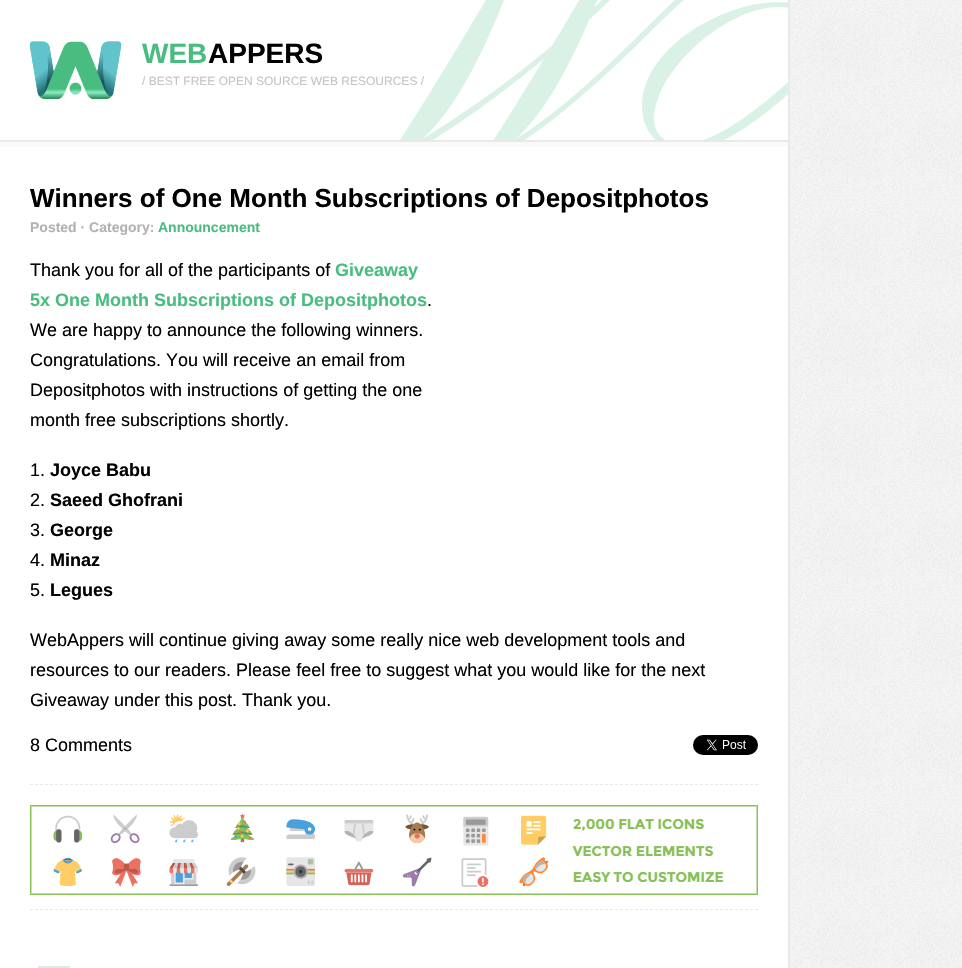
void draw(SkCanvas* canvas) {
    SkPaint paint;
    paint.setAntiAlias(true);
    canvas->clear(0xFFFFFFFF);
    canvas->drawImageRect(SkImages::DeferredFromEncodedData(SkData::MakeFromFileName("img1.png")), SkRect::MakeXYWH(790, 0, 172, 968), SkSamplingOptions());
    paint.setColor(0xFFE9E9E9);
    canvas->drawRect(SkRect::MakeXYWH(788, 0, 2, 968), paint);
    paint.setColor(0xFFFAFAFA);
    canvas->drawRect(SkRect::MakeXYWH(0, 142, 788, 5), paint);
    canvas->drawImageRect(SkImages::DeferredFromEncodedData(SkData::MakeFromFileName("img2.png")), SkRect::MakeXYWH(400, 0, 388, 140), SkSamplingOptions());
    paint.setColor(0xFFE9E9E9);
    canvas->drawRect(SkRect::MakeXYWH(0, 140, 788, 2), paint);
    canvas->drawImageRect(SkImages::DeferredFromEncodedData(SkData::MakeFromFileName("img3.png")), SkRect::MakeXYWH(29, 41, 93, 58), SkSamplingOptions());
    SkFont font1(fontMgr->matchFamilyStyle("Liberation Sans", SkFontStyle::Bold()), 28);
    font1.setSubpixel(true);
    paint.setColor(0xFF48BD7F);
    canvas->drawString("WEB", 142, 63, font1, paint);
    paint.setColor(0xFF000000);
    canvas->drawString("APPERS", 208, 63, font1, paint);
    SkFont font2(fontMgr->matchFamilyStyle("Liberation Sans", SkFontStyle::Normal()), 12);
    font2.setSubpixel(true);
    paint.setColor(0xFFC5C5C5);
    canvas->drawString("/ BEST FREE OPEN SOURCE WEB RESOURCES /", 142, 85, font2, paint);
    paint.setStyle(SkPaint::kStroke_Style);
    paint.setStrokeWidth(1);
    paint.setColor(0xFFE9E9E9);
    paint.setPathEffect(SkDashPathEffect::Make({{3, 2}}, 0));
    canvas->drawPath(SkPathBuilder().moveTo(30, 784.5f).lineTo(758, 784.5f).detach(), paint);
    paint.setPathEffect(nullptr);
    SkFont font3(fontMgr->matchFamilyStyle("Liberation Sans", SkFontStyle::Bold()), 26);
    font3.setSubpixel(true);
    paint.setStyle(SkPaint::kFill_Style);
    paint.setColor(0xFF000000);
    canvas->drawString("Winners of One Month Subscriptions of Depositphotos", 30, 207, font3, paint);
    SkFont font4(fontMgr->matchFamilyStyle("Liberation Sans", SkFontStyle::Bold()), 14);
    font4.setSubpixel(true);
    paint.setColor(0xFFB2B2B2);
    canvas->drawString("Posted · Category:", 30, 232, font4, paint);
    paint.setColor(0xFF48BD7F);
    canvas->drawString("Announcement", 158, 232, font4, paint);
    SkFont font5(fontMgr->matchFamilyStyle("Liberation Sans", SkFontStyle::Normal()), 18);
    font5.setSubpixel(true);
    paint.setColor(0xFF000000);
    canvas->drawString("Thank you for all of the participants of", 30, 276, font5, paint);
    SkFont font6(fontMgr->matchFamilyStyle("Liberation Sans", SkFontStyle::Bold()), 18);
    font6.setSubpixel(true);
    paint.setColor(0xFF48BD7F);
    canvas->drawString("Giveaway", 335, 276, font6, paint);
    canvas->drawString("5x One Month Subscriptions of Depositphotos", 30, 306, font6, paint);
    paint.setColor(0xFF000000);
    canvas->drawString(".", 427, 306, font5, paint);
    canvas->drawString("We are happy to announce the following winners.", 30, 336, font5, paint);
    canvas->drawString("Congratulations. You will receive an email from", 30, 366, font5, paint);
    canvas->drawString("Depositphotos with instructions of getting the one", 30, 396, font5, paint);
    canvas->drawString("month free subscriptions shortly.", 30, 426, font5, paint);
    canvas->drawString("1.", 30, 476, font5, paint);
    canvas->drawString("Joyce Babu", 50, 476, font6, paint);
    canvas->drawString("2.", 30, 506, font5, paint);
    canvas->drawString("Saeed Ghofrani", 50, 506, font6, paint);
    canvas->drawString("3.", 30, 536, font5, paint);
    canvas->drawString("George", 50, 536, font6, paint);
    canvas->drawString("4.", 30, 566, font5, paint);
    canvas->drawString("Minaz", 50, 566, font6, paint);
    canvas->drawString("5.", 30, 596, font5, paint);
    canvas->drawString("Legues", 50, 596, font6, paint);
    canvas->drawString("WebAppers will continue giving away some really nice web development tools and", 30, 646, font5, paint);
    canvas->drawString("resources to our readers. Please feel free to suggest what you would like for the next", 30, 676, font5, paint);
    canvas->drawString("Giveaway under this post. Thank you.", 30, 706, font5, paint);
    canvas->drawString("8 Comments", 30, 751, font5, paint);
    canvas->drawImageRect(SkImages::DeferredFromEncodedData(SkData::MakeFromFileName("img4.png")), SkRect::MakeXYWH(693, 735, 65, 20), SkSamplingOptions());
    paint.setStyle(SkPaint::kStroke_Style);
    paint.setColor(0xFFE9E9E9);
    paint.setPathEffect(SkDashPathEffect::Make({{3, 2}}, 0));
    canvas->drawPath(SkPathBuilder().moveTo(30, 909.5f).lineTo(758, 909.5f).detach(), paint);
    paint.setPathEffect(nullptr);
    canvas->drawImageRect(SkImages::DeferredFromEncodedData(SkData::MakeFromFileName("img5.png")), SkRect::MakeXYWH(30, 805, 728, 90), SkSamplingOptions());
    paint.setStyle(SkPaint::kFill_Style);
    paint.setColor(0xFFE2E7EA);
    canvas->drawRect(SkRect::MakeXYWH(38, 966, 32, 2), paint);
}
